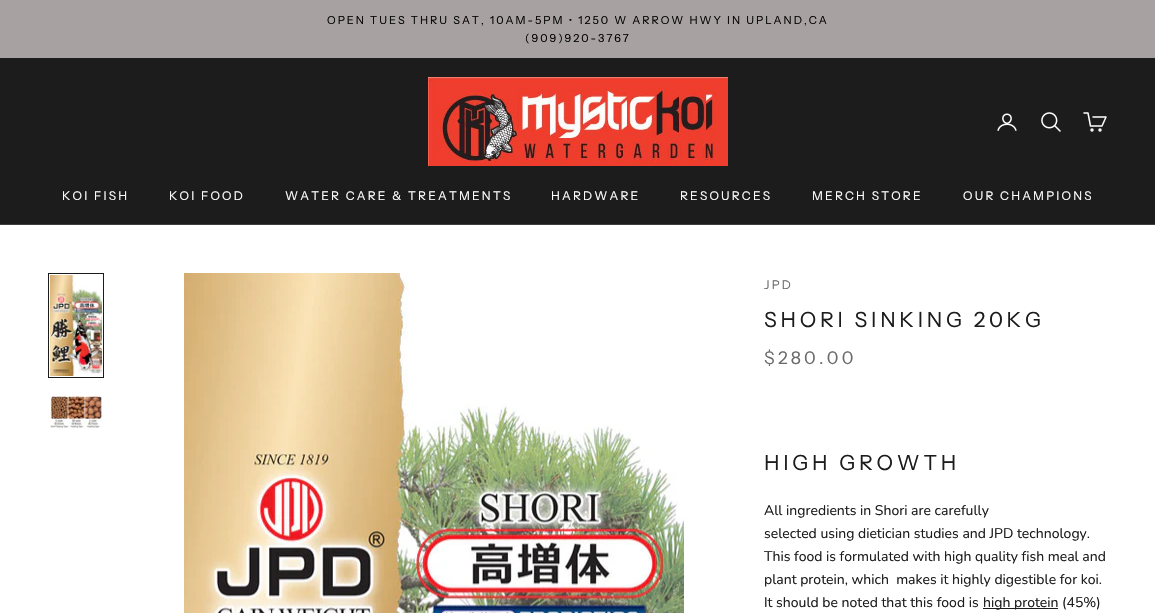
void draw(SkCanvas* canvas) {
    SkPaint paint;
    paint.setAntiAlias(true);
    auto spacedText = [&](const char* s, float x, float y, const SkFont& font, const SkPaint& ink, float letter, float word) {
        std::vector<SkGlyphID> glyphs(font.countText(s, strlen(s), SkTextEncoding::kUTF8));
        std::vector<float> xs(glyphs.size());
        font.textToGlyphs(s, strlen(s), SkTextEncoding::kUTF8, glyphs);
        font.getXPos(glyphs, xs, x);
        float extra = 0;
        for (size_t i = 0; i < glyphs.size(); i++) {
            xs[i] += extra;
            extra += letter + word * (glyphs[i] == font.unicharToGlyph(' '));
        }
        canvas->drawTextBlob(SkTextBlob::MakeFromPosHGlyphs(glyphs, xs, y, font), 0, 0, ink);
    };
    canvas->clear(0xFFFFFFFF);
    paint.setColor(0xFFA7A1A1);
    canvas->drawRect(SkRect::MakeXYWH(0, 0, 1155, 58), paint);
    SkFont font1(fontMgr->matchFamilyStyle("Instrument Sans", SkFontStyle::Normal()), 11);
    font1.setSubpixel(true);
    paint.setColor(0xFF020202);
    spacedText("OPEN TUES THRU SAT, 10AM-5PM • 1250 W ARROW HWY IN UPLAND,CA", 327, 24, font1, paint, 1.98f, 0);
    spacedText("(909)920-3767", 525, 42, font1, paint, 1.98f, 0);
    paint.setColor(0xFF1C1C1C);
    canvas->drawRect(SkRect::MakeXYWH(0, 58, 1155, 166), paint);
    paint.setColor(0xFF3E3E3E);
    canvas->drawRect(SkRect::MakeXYWH(0, 224, 1155, 1), paint);
    canvas->drawImageRect(SkImages::DeferredFromEncodedData(SkData::MakeFromFileName("img1.png")), SkRect::MakeXYWH(428, 77, 300, 89), SkSamplingOptions());
    canvas->drawImageRect(SkImages::DeferredFromEncodedData(SkData::MakeFromFileName("img2.png")), SkRect::MakeXYWH(997, 113, 20, 18), SkSamplingOptions());
    canvas->drawImageRect(SkImages::DeferredFromEncodedData(SkData::MakeFromFileName("img3.png")), SkRect::MakeXYWH(1041, 112, 20, 20), SkSamplingOptions());
    paint.setStyle(SkPaint::kStroke_Style);
    paint.setStrokeWidth(1.5f);
    paint.setStrokeCap(SkPaint::kRound_Cap);
    paint.setStrokeJoin(SkPaint::kRound_Join);
    paint.setColor(0xFFFFFFFF);
    canvas->drawPath(SkPathBuilder().moveTo(1093, 117).lineTo(1106, 117).lineTo(1102, 126).lineTo(1090.5f, 126).lineTo(1088, 113).lineTo(1084, 113).detach(), paint);
    paint.setStrokeCap(SkPaint::kButt_Cap);
    paint.setStrokeJoin(SkPaint::kMiter_Join);
    canvas->drawCircle(1092, 130, 1, paint);
    canvas->drawCircle(1100, 130, 1, paint);
    SkFont font2(fontMgr->matchFamilyStyle("Instrument Sans", SkFontStyle::Normal()), 12);
    font2.setSubpixel(true);
    paint.setStyle(SkPaint::kFill_Style);
    spacedText("KOI FISH", 62, 200, font2, paint, 2.2f, 0);
    spacedText("KOI FOOD", 169, 200, font2, paint, 2.2f, 0);
    spacedText("WATER CARE & TREATMENTS", 285, 200, font2, paint, 2.2f, 0);
    spacedText("HARDWARE", 551, 200, font2, paint, 2.2f, 0);
    spacedText("RESOURCES", 680, 200, font2, paint, 2.2f, 0);
    spacedText("MERCH STORE", 812, 200, font2, paint, 2.2f, 0);
    spacedText("OUR CHAMPIONS", 963, 200, font2, paint, 2.2f, 0);
    paint.setStyle(SkPaint::kStroke_Style);
    paint.setStrokeWidth(1);
    paint.setColor(0xFF1C1C1C);
    canvas->drawRect(SkRect::MakeXYWH(48.5f, 273.5f, 55, 104), paint);
    canvas->drawImageRect(SkImages::DeferredFromEncodedData(SkData::MakeFromFileName("img4.png")), SkRect::MakeXYWH(50, 275, 52, 101), SkSamplingOptions());
    canvas->drawImageRect(SkImages::DeferredFromEncodedData(SkData::MakeFromFileName("img5.png")), SkRect::MakeXYWH(50, 396, 52, 32), SkSamplingOptions());
    canvas->drawImageRect(SkImages::DeferredFromEncodedData(SkData::MakeFromFileName("img6.png")), SkRect::MakeXYWH(184, 273, 500, 340), SkSamplingOptions());
    paint.setStyle(SkPaint::kFill_Style);
    paint.setColor(0xFF6B6B6B);
    spacedText("JPD", 764, 289, font2, paint, 2.2f, 0);
    SkFont font3(fontMgr->matchFamilyStyle("Instrument Sans", SkFontStyle::Normal()), 21);
    font3.setSubpixel(true);
    paint.setColor(0xFF1C1C1C);
    spacedText("SHORI SINKING 20KG", 764, 327, font3, paint, 3.75f, 0);
    SkFont font4(fontMgr->matchFamilyStyle("Instrument Sans", SkFontStyle::Normal()), 17.5f);
    font4.setSubpixel(true);
    paint.setColor(0xFF6B6B6B);
    spacedText("$280.00", 764, 364, font4, paint, 3.25f, 0);
    paint.setColor(0xFF1C1C1C);
    spacedText("HIGH GROWTH", 764, 470, font3, paint, 3.75f, 0);
    SkFont font5(fontMgr->matchFamilyStyle("Nunito", SkFontStyle::Normal()), 14);
    font5.setSubpixel(true);
    canvas->drawString("All ingredients in Shori are carefully", 764, 515, font5, paint);
    canvas->drawString("selected using dietician studies and JPD technology.", 764, 538, font5, paint);
    canvas->drawString("This food is formulated with high quality fish meal and", 764, 561, font5, paint);
    canvas->drawString("plant protein, which  makes it highly digestible for koi.", 764, 584, font5, paint);
    canvas->drawString("It should be noted that this food is", 764, 607, font5, paint);
    canvas->drawRect(SkRect::MakeXYWH(983, 608, 75, 1), paint);
    canvas->drawString("high protein (45%)", 983, 607, font5, paint);
}
